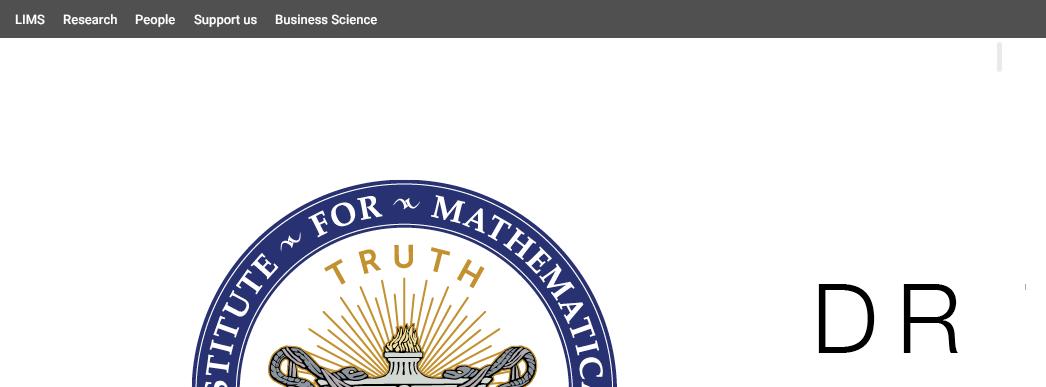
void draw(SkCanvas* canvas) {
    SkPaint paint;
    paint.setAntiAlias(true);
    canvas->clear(0xFFFFFFFF);
    paint.setColor(0xFF505050);
    canvas->drawRect(SkRect::MakeXYWH(0, 0, 1046, 38), paint);
    SkFont font1(fontMgr->matchFamilyStyle("Roboto", SkFontStyle(500, SkFontStyle::kNormal_Width, SkFontStyle::kUpright_Slant)), 13);
    font1.setSubpixel(true);
    paint.setColor(0xFFFFFFFF);
    canvas->drawString("LIMS", 15, 24, font1, paint);
    canvas->drawString("Research", 63, 24, font1, paint);
    canvas->drawString("People", 135, 24, font1, paint);
    canvas->drawString("Support us", 194, 24, font1, paint);
    canvas->drawString("Business Science", 275, 24, font1, paint);
    paint.setColor(0xFFEAEAEB);
    canvas->drawRoundRect(SkRect::MakeXYWH(996.5f, 41.5f, 6, 31), 3, 3, paint);
    paint.setStyle(SkPaint::kStroke_Style);
    paint.setStrokeWidth(1);
    paint.setColor(0xFFFFFFFF);
    canvas->drawRoundRect(SkRect::MakeXYWH(996.5f, 41.5f, 6, 31), 3, 3, paint);
    canvas->drawImageRect(SkImages::DeferredFromEncodedData(SkData::MakeFromFileName("img1.png")), SkRect::MakeXYWH(191, 179, 835, 208), SkSamplingOptions());
}
